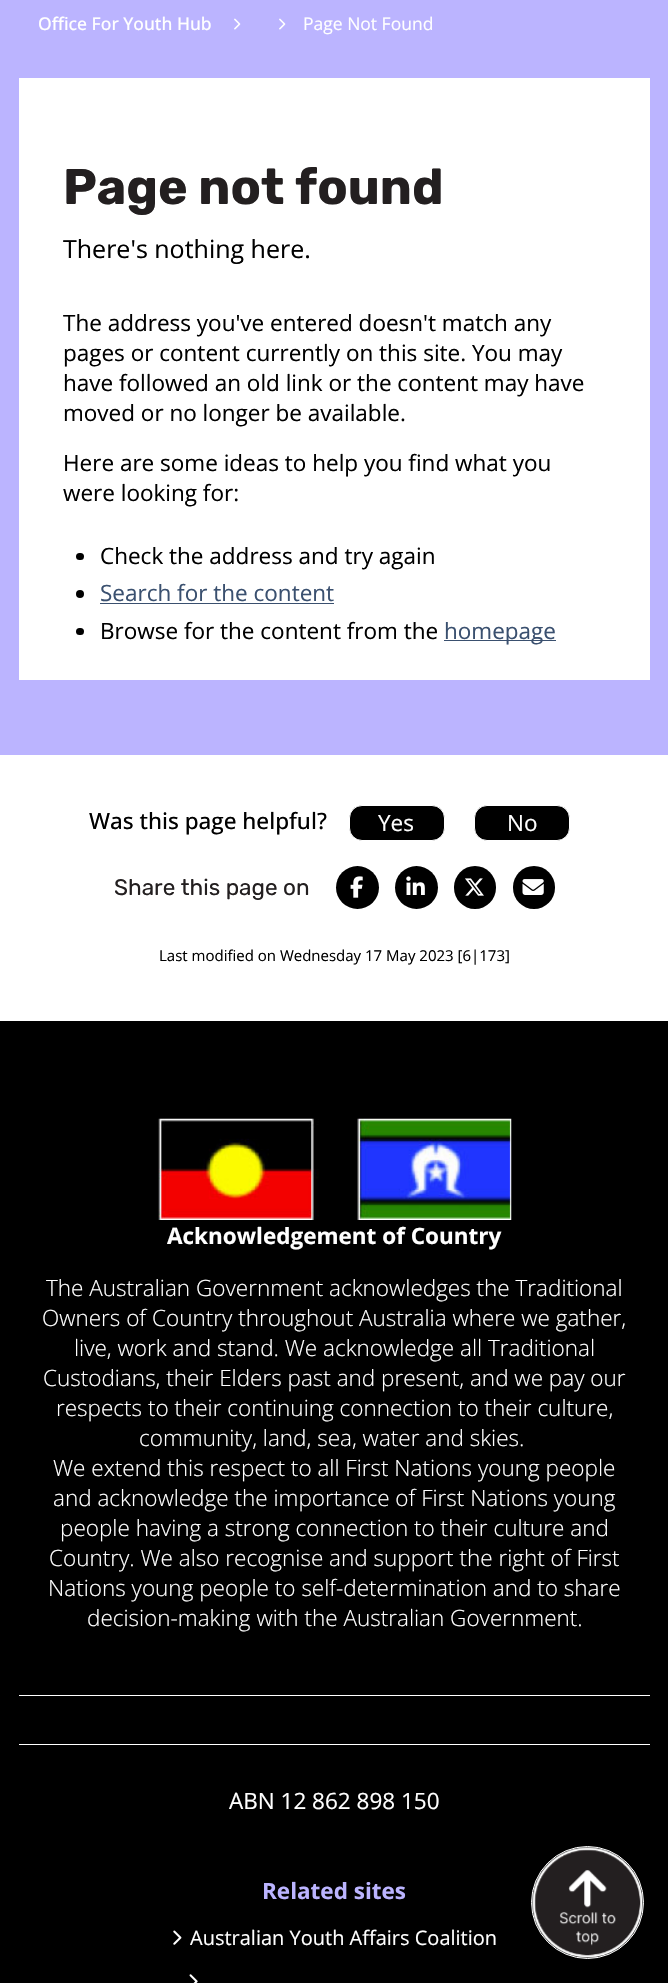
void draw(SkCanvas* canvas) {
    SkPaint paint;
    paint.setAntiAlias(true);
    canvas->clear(0xFFFFFFFF);
    paint.setColor(0xFFBBB4FF);
    canvas->drawRect(SkRect::MakeXYWH(0, 0, 668, 755), paint);
    SkFont font1(fontMgr->matchFamilyStyle("Open Sans", SkFontStyle(500, SkFontStyle::kNormal_Width, SkFontStyle::kUpright_Slant)), 17.5f);
    font1.setSubpixel(true);
    paint.setColor(0xFFFFFFFF);
    canvas->drawString("Office For Youth Hub", 38, 30, font1, paint);
    canvas->drawImageRect(SkImages::DeferredFromEncodedData(SkData::MakeFromFileName("img1.png")), SkRect::MakeXYWH(234, 18, 7, 12), SkSamplingOptions());
    canvas->drawImageRect(SkImages::DeferredFromEncodedData(SkData::MakeFromFileName("img1.png")), SkRect::MakeXYWH(279, 18, 7, 12), SkSamplingOptions());
    SkFont font2(fontMgr->matchFamilyStyle("Open Sans", SkFontStyle::Normal()), 17.5f);
    font2.setSubpixel(true);
    canvas->drawString("Page Not Found", 303, 30, font2, paint);
    canvas->drawRect(SkRect::MakeXYWH(19, 78, 631, 602), paint);
    SkFont font3(fontMgr->matchFamilyStyle("Rubik", SkFontStyle::Bold()), 50);
    font3.setSubpixel(true);
    paint.setColor(0xFF231F20);
    canvas->drawString("Page not found", 63, 204, font3, paint);
    SkFont font4(fontMgr->matchFamilyStyle("Open Sans", SkFontStyle::Normal()), 25);
    font4.setSubpixel(true);
    paint.setColor(0xFF000000);
    canvas->drawString("There's nothing here.", 63, 258, font4, paint);
    SkFont font5(fontMgr->matchFamilyStyle("Open Sans", SkFontStyle::Normal()), 22.5f);
    font5.setSubpixel(true);
    canvas->drawString("The address you've entered doesn't match any", 63, 331, font5, paint);
    canvas->drawString("pages or content currently on this site. You may", 63, 361, font5, paint);
    canvas->drawString("have followed an old link or the content may have", 63, 391, font5, paint);
    canvas->drawString("moved or no longer be available.", 63, 421, font5, paint);
    canvas->drawString("Here are some ideas to help you find what you", 63, 471, font5, paint);
    canvas->drawString("were looking for:", 63, 501, font5, paint);
    canvas->drawRoundRect(SkRect::MakeXYWH(76, 553, 8, 7), 3.5f, 3.5f, paint);
    canvas->drawString("Check the address and try again", 100, 564, font5, paint);
    canvas->drawCircle(80, 594, 4, paint);
    paint.setColor(0xFF3A506F);
    canvas->drawString("Search for the content", 100, 601, font5, paint);
    canvas->drawRect(SkRect::MakeXYWH(100, 603, 234, 1), paint);
    paint.setColor(0xFF000000);
    canvas->drawRoundRect(SkRect::MakeXYWH(76, 628, 8, 7), 3.5f, 3.5f, paint);
    canvas->drawString("Browse for the content from the", 100, 639, font5, paint);
    paint.setColor(0xFF3A506F);
    canvas->drawRect(SkRect::MakeXYWH(444, 640, 112, 1), paint);
    canvas->drawString("homepage", 444, 639, font5, paint);
    SkFont font6(fontMgr->matchFamilyStyle("Open Sans", SkFontStyle(500, SkFontStyle::kNormal_Width, SkFontStyle::kUpright_Slant)), 22.5f);
    font6.setSubpixel(true);
    paint.setColor(0xFF000000);
    canvas->drawString("Was this page helpful?", 89, 829, font6, paint);
    canvas->drawRoundRect(SkRect::MakeXYWH(349.5f, 805.5f, 95, 35), 12.5f, 12.5f, paint);
    paint.setStyle(SkPaint::kStroke_Style);
    paint.setStrokeWidth(1);
    paint.setColor(0xFFFFFFFF);
    canvas->drawRoundRect(SkRect::MakeXYWH(349.5f, 805.5f, 95, 35), 12.5f, 12.5f, paint);
    paint.setStyle(SkPaint::kFill_Style);
    canvas->drawString("Yes", 378, 831, font5, paint);
    paint.setColor(0xFF000000);
    canvas->drawRoundRect(SkRect::MakeXYWH(474.5f, 805.5f, 95, 35), 12.5f, 12.5f, paint);
    paint.setStyle(SkPaint::kStroke_Style);
    paint.setColor(0xFFFFFFFF);
    canvas->drawRoundRect(SkRect::MakeXYWH(474.5f, 805.5f, 95, 35), 12.5f, 12.5f, paint);
    paint.setStyle(SkPaint::kFill_Style);
    canvas->drawString("No", 507, 831, font5, paint);
    SkFont font7(fontMgr->matchFamilyStyle("Rubik", SkFontStyle::Normal()), 22.5f);
    font7.setSubpixel(true);
    paint.setColor(0xFF231F20);
    canvas->drawString("Share this page on", 114, 895, font7, paint);
    paint.setColor(0xFF000000);
    canvas->drawCircle(357.5f, 887.5f, 21.5f, paint);
    canvas->drawImageRect(SkImages::DeferredFromEncodedData(SkData::MakeFromFileName("img2.png")), SkRect::MakeXYWH(350, 876, 13, 22), SkSamplingOptions());
    canvas->drawCircle(416.5f, 887.5f, 21.5f, paint);
    canvas->drawImageRect(SkImages::DeferredFromEncodedData(SkData::MakeFromFileName("img3.png")), SkRect::MakeXYWH(406, 876, 19, 19), SkSamplingOptions());
    canvas->drawRoundRect(SkRect::MakeXYWH(454, 866, 42, 43), 21, 21, paint);
    canvas->drawImageRect(SkImages::DeferredFromEncodedData(SkData::MakeFromFileName("img4.png")), SkRect::MakeXYWH(465, 878, 19, 18), SkSamplingOptions());
    canvas->drawRoundRect(SkRect::MakeXYWH(513, 866, 42, 43), 21, 21, paint);
    canvas->drawImageRect(SkImages::DeferredFromEncodedData(SkData::MakeFromFileName("img5.png")), SkRect::MakeXYWH(522, 879, 22, 16), SkSamplingOptions());
    SkFont font8(fontMgr->matchFamilyStyle("Open Sans", SkFontStyle::Normal()), 15);
    font8.setSubpixel(true);
    canvas->drawString("Last modified on Wednesday 17 May 2023 [6|173]", 159, 961, font8, paint);
    canvas->drawRect(SkRect::MakeXYWH(0, 1021, 668, 962), paint);
    paint.setColor(0xFFFFFFFF);
    canvas->drawRect(SkRect::MakeXYWH(19, 1695, 631, 1), paint);
    canvas->drawImageRect(SkImages::DeferredFromEncodedData(SkData::MakeFromFileName("img6.png")), SkRect::MakeXYWH(158, 1118, 354, 102), SkSamplingOptions());
    SkFont font9(fontMgr->matchFamilyStyle("Open Sans", SkFontStyle::Bold()), 22.5f);
    font9.setSubpixel(true);
    canvas->drawString("Acknowledgement of Country", 167, 1244, font9, paint);
    SkFont font10(fontMgr->matchFamilyStyle("Open Sans", SkFontStyle(300, SkFontStyle::kNormal_Width, SkFontStyle::kUpright_Slant)), 22.5f);
    font10.setSubpixel(true);
    canvas->drawString("The Australian Government acknowledges the Traditional", 46, 1296, font10, paint);
    canvas->drawString("Owners of Country throughout Australia where we gather,", 42, 1326, font10, paint);
    canvas->drawString("live, work and stand. We acknowledge all Traditional", 74, 1356, font10, paint);
    canvas->drawString("Custodians, their Elders past and present, and we pay our", 43, 1386, font10, paint);
    canvas->drawString("respects to their continuing connection to their culture,", 56, 1416, font10, paint);
    canvas->drawString("community, land, sea, water and skies.", 139, 1446, font10, paint);
    canvas->drawString("We extend this respect to all First Nations young people", 53, 1476, font10, paint);
    canvas->drawString("and acknowledge the importance of First Nations young", 53, 1506, font10, paint);
    canvas->drawString("people having a strong connection to their culture and", 60, 1536, font10, paint);
    canvas->drawString("Country. We also recognise and support the right of First", 49, 1566, font10, paint);
    canvas->drawString("Nations young people to self-determination and to share", 48, 1596, font10, paint);
    canvas->drawString("decision-making with the Australian Government.", 87, 1626, font10, paint);
    canvas->drawRect(SkRect::MakeXYWH(19, 1744, 631, 1), paint);
    canvas->drawString("ABN 12 862 898 150", 229, 1809, font5, paint);
    paint.setColor(0xFFBBB4FF);
    canvas->drawString("Related sites", 262, 1899, font9, paint);
    canvas->drawImageRect(SkImages::DeferredFromEncodedData(SkData::MakeFromFileName("img7.png")), SkRect::MakeXYWH(173, 1930, 9, 15), SkSamplingOptions());
    SkFont font11(fontMgr->matchFamilyStyle("Open Sans", SkFontStyle::Normal()), 20);
    font11.setSubpixel(true);
    paint.setColor(0xFFFFFFFF);
    canvas->drawString("Australian Youth Affairs Coalition", 190, 1945, font11, paint);
    canvas->drawImageRect(SkImages::DeferredFromEncodedData(SkData::MakeFromFileName("img8.png")), SkRect::MakeXYWH(189, 1974, 9, 9), SkSamplingOptions());
    canvas->drawImageRect(SkImages::DeferredFromEncodedData(SkData::MakeFromFileName("img9.png")), SkRect::MakeXYWH(532, 1847, 112, 112), SkSamplingOptions());
    paint.setStyle(SkPaint::kStroke_Style);
    canvas->drawCircle(587.5f, 1902.5f, 56, paint);
}
